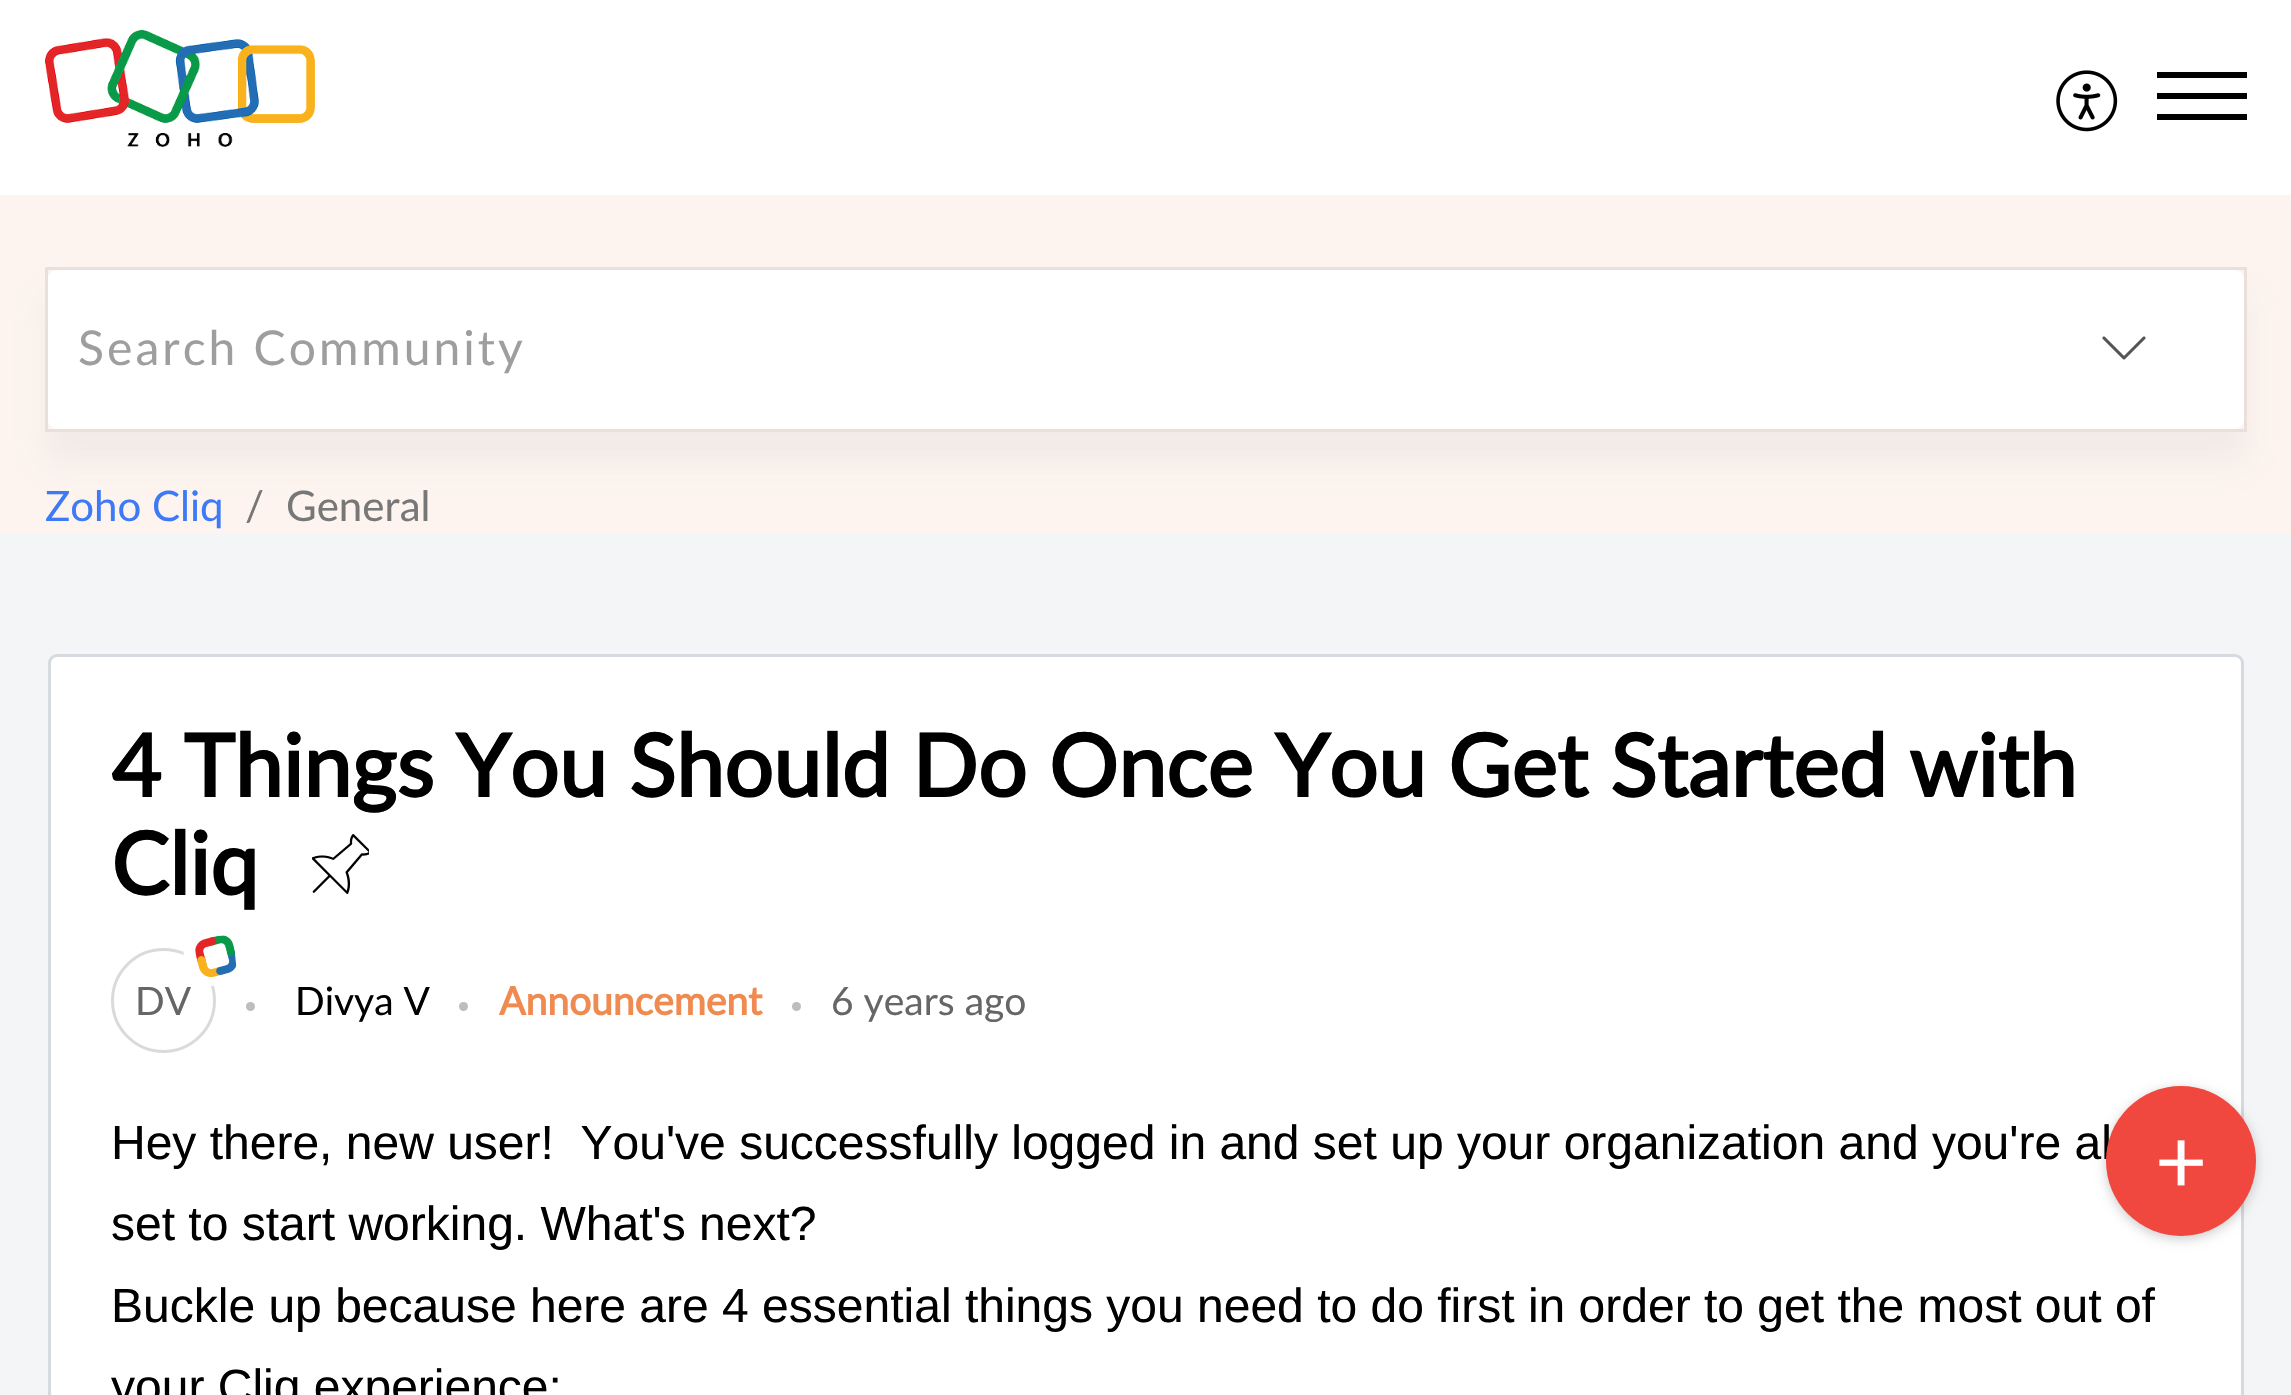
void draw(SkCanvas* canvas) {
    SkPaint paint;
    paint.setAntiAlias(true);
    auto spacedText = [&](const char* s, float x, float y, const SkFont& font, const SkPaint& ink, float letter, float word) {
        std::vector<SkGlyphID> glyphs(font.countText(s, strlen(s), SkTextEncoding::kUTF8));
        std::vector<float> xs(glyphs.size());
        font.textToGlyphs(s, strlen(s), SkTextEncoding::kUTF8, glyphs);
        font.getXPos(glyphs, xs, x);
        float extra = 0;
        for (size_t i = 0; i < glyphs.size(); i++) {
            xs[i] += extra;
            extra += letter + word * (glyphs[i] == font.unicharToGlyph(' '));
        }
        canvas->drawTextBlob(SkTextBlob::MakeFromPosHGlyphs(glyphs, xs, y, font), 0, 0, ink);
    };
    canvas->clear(0xFFF3F5F7);
    paint.setColor(0xFFFFFFFF);
    canvas->drawRect(SkRect::MakeXYWH(0, 0, 2291, 195), paint);
    canvas->drawImageRect(SkImages::DeferredFromEncodedData(SkData::MakeFromFileName("img1.png")), SkRect::MakeXYWH(45, 30, 270, 117), SkSamplingOptions());
    canvas->drawImageRect(SkImages::DeferredFromEncodedData(SkData::MakeFromFileName("img2.png")), SkRect::MakeXYWH(2056, 70, 62, 62), SkSamplingOptions());
    paint.setColor(0xFF000000);
    canvas->drawRect(SkRect::MakeXYWH(2157, 93, 90, 6), paint);
    canvas->drawRect(SkRect::MakeXYWH(2157, 72, 90, 6), paint);
    canvas->drawRect(SkRect::MakeXYWH(2157, 114, 90, 6), paint);
    paint.setColor(0xFFFDF4EF);
    canvas->drawRect(SkRect::MakeXYWH(0, 195, 2291, 339), paint);
    canvas->save();
    canvas->clipPath(SkPathBuilder(SkPathFillType::kEvenOdd).moveTo(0, 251).lineTo(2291, 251).lineTo(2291, 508).lineTo(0, 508).close().moveTo(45, 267).lineTo(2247, 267).lineTo(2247, 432).lineTo(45, 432).close().detach(), true);
    paint.setColor(0xD6F0E8E5);
    paint.setMaskFilter(SkMaskFilter::MakeBlur(kNormal_SkBlurStyle, 15));
    canvas->drawRect(SkRect::MakeXYWH(45, 297, 2202, 165), paint);
    paint.setMaskFilter(nullptr);
    canvas->restore();
    paint.setStyle(SkPaint::kStroke_Style);
    paint.setStrokeWidth(3);
    paint.setColor(0xFFEADFDB);
    canvas->drawRect(SkRect::MakeXYWH(46.5f, 268.5f, 2199, 162), paint);
    paint.setStyle(SkPaint::kFill_Style);
    paint.setColor(0xFFFFFFFF);
    canvas->drawRoundRect(SkRect::MakeXYWH(48, 270, 2196, 159), 9, 9, paint);
    canvas->drawRoundRect(SkRect::MakeXYWH(48, 270, 1956, 159), 9, 9, paint);
    SkFont font1(fontMgr->matchFamilyStyle("Lato", SkFontStyle::Normal()), 48);
    font1.setSubpixel(true);
    paint.setColor(0xFF9E9E9E);
    spacedText("Search Community", 78, 365, font1, paint, 3, 0);
    canvas->drawImageRect(SkImages::DeferredFromEncodedData(SkData::MakeFromFileName("img3.png")), SkRect::MakeXYWH(2102, 336, 44, 24), SkSamplingOptions());
    paint.setColor(0xFFFFFFFF);
    canvas->drawPath(SkPathBuilder().moveTo(57, 654).lineTo(2235, 654).cubicTo(2240, 654, 2244, 658, 2244, 663).lineTo(2244, 1395).lineTo(48, 1395).lineTo(48, 663).cubicTo(48, 658, 52, 654, 57, 654).close().detach(), paint);
    paint.setStyle(SkPaint::kStroke_Style);
    paint.setColor(0xFFD4DADF);
    canvas->drawRoundRect(SkRect::MakeXYWH(49.5f, 655.5f, 2193, 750), 7.5f, 7.5f, paint);
    paint.setStyle(SkPaint::kFill_Style);
    paint.setColor(0x33000000);
    paint.setMaskFilter(SkMaskFilter::MakeBlur(kNormal_SkBlurStyle, 6));
    canvas->drawRoundRect(SkRect::MakeXYWH(2106, 1089, 150, 150), 75, 75, paint);
    paint.setMaskFilter(nullptr);
    SkFont font2(fontMgr->matchFamilyStyle("Liberation Sans", SkFontStyle::Normal()), 48);
    font2.setSubpixel(true);
    paint.setColor(0xFF000000);
    canvas->drawString("Hey there, new user!  You've successfully logged in and set up your organization and you're al", 111, 1159, font2, paint);
    paint.setColor(0xFFF0483E);
    canvas->drawCircle(2181, 1161, 75, paint);
    SkFont font3(fontMgr->matchFamilyStyle("Lato", SkFontStyle::Normal()), 90);
    font3.setSubpixel(true);
    paint.setColor(0xFFFFFFFF);
    canvas->drawString("+", 2155, 1193, font3, paint);
    SkFont font4(fontMgr->matchFamilyStyle("Lato", SkFontStyle::Normal()), 42);
    font4.setSubpixel(true);
    paint.setColor(0xFF3E7AF7);
    canvas->drawString("Zoho Cliq", 45, 521, font4, paint);
    paint.setColor(0xFF777777);
    canvas->drawString("/", 245, 521, font4, paint);
    canvas->drawString("General", 286, 521, font4, paint);
    SkFont font5(fontMgr->matchFamilyStyle("Lato", SkFontStyle::Bold()), 86.4f);
    font5.setSubpixel(true);
    paint.setColor(0xFF000000);
    canvas->drawString("4 Things You Should Do Once You Get Started with", 111, 797, font5, paint);
    canvas->drawString("Cliq", 111, 895, font5, paint);
    canvas->drawImageRect(SkImages::DeferredFromEncodedData(SkData::MakeFromFileName("img4.png")), SkRect::MakeXYWH(312, 834, 57, 60), SkSamplingOptions());
    paint.setStyle(SkPaint::kStroke_Style);
    paint.setColor(0xFFDADADA);
    canvas->drawCircle(163.5f, 1000.5f, 51, paint);
    paint.setStyle(SkPaint::kFill_Style);
    paint.setColor(0xFFFFFFFF);
    canvas->drawPath(SkPathBuilder().moveTo(201, 931).lineTo(215, 928).cubicTo(227, 925, 238, 932, 240, 944).lineTo(243, 958).cubicTo(246, 970, 238, 981, 227, 983).lineTo(212, 986).cubicTo(201, 989, 190, 982, 188, 970).lineTo(184, 956).cubicTo(182, 944, 189, 933, 201, 931).close().detach(), paint);
    canvas->drawImageRect(SkImages::DeferredFromEncodedData(SkData::MakeFromFileName("img5.png")), SkRect::MakeXYWH(195, 935, 42, 42), SkSamplingOptions());
    SkFont font6(fontMgr->matchFamilyStyle("Lato", SkFontStyle::Normal()), 39);
    font6.setSubpixel(true);
    paint.setColor(0xFF666666);
    canvas->drawString("DV", 135, 1015, font6, paint);
    paint.setColor(0xFFBDBDBD);
    canvas->drawCircle(250.5f, 1006.5f, 4.5f, paint);
    paint.setColor(0xFF000000);
    canvas->drawString("Divya V", 295, 1015, font6, paint);
    paint.setColor(0xFFBDBDBD);
    canvas->drawCircle(463.5f, 1006.5f, 4.5f, paint);
    SkFont font7(fontMgr->matchFamilyStyle("Lato", SkFontStyle::Bold()), 39);
    font7.setSubpixel(true);
    paint.setColor(0xFFEF8B50);
    canvas->drawString("Announcement", 499, 1015, font7, paint);
    paint.setColor(0xFFBDBDBD);
    canvas->drawCircle(796.5f, 1006.5f, 4.5f, paint);
    paint.setColor(0xFF666666);
    canvas->drawString("6 years ago", 831, 1015, font6, paint);
    paint.setColor(0xFF000000);
    canvas->drawString("set to start working. What's next?", 111, 1240, font2, paint);
    canvas->drawString("Buckle up because here are 4 essential things you need to do first in order to get the most out of", 111, 1322, font2, paint);
    canvas->drawString("your Cliq experience:", 111, 1403, font2, paint);
}
